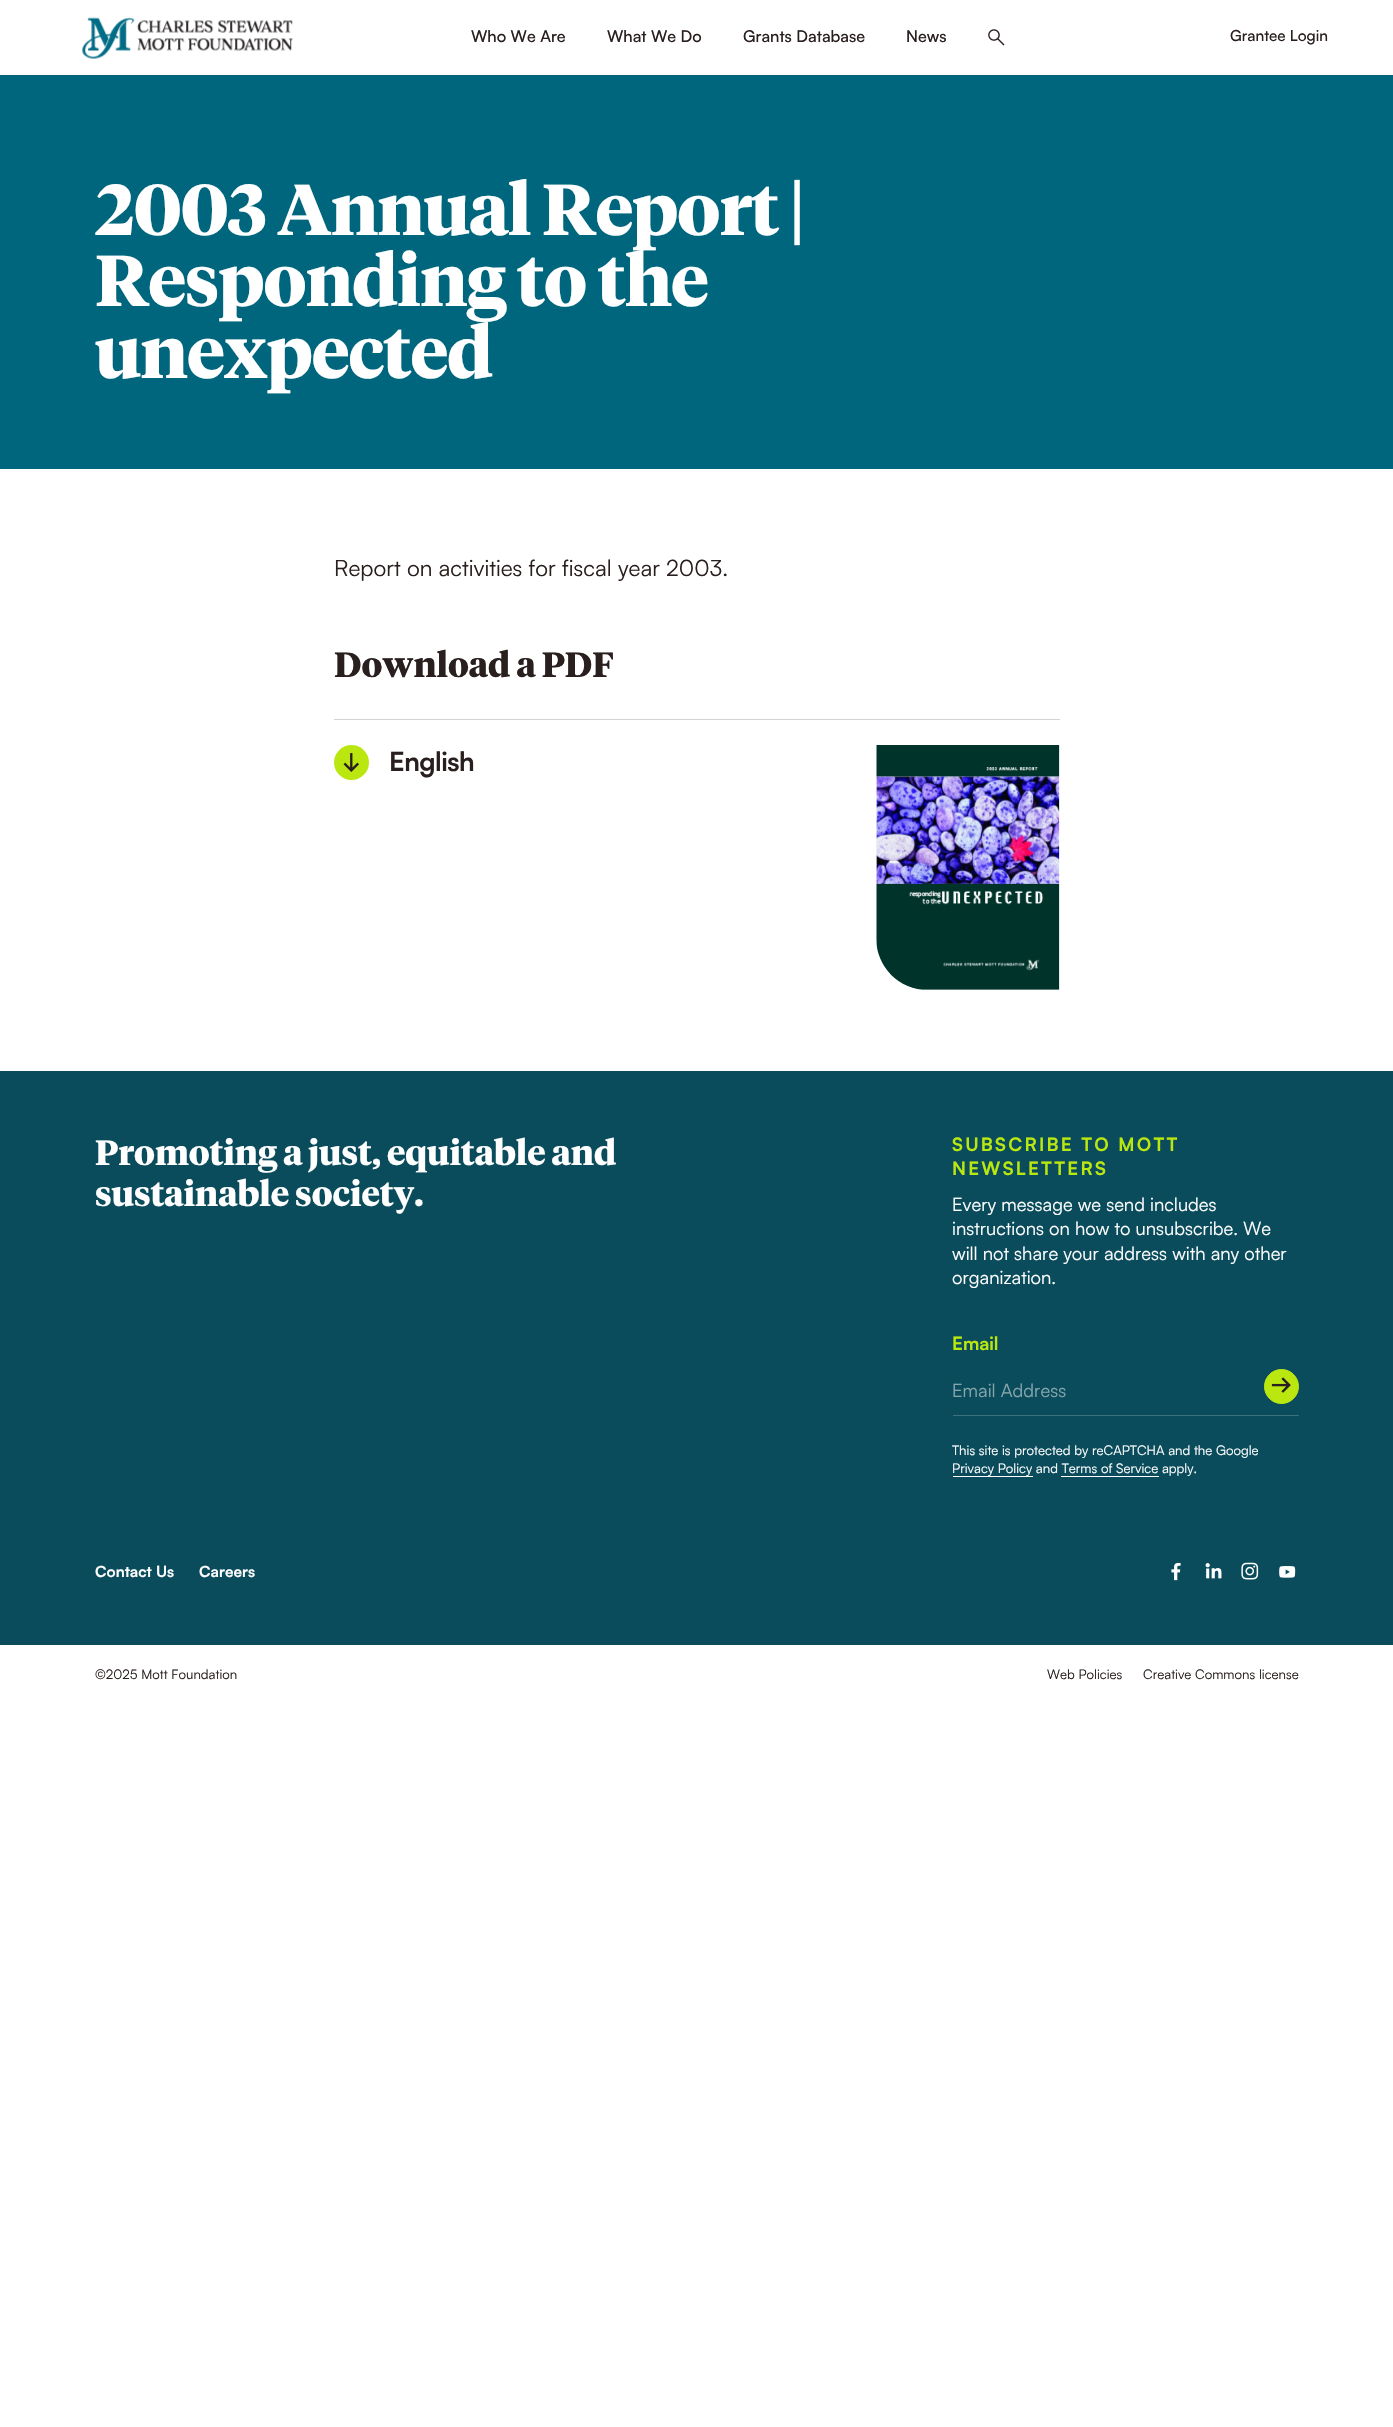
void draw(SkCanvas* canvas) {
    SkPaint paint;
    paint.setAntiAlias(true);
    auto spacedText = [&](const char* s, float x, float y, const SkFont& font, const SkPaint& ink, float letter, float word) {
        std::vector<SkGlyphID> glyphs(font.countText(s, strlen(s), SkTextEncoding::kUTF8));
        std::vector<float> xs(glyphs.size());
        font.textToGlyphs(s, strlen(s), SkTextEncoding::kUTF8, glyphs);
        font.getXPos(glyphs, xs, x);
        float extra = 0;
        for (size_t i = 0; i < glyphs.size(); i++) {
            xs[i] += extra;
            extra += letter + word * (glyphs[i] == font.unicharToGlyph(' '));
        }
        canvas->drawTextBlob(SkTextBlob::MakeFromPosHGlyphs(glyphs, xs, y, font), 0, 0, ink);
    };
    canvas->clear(0xFFFFFFFF);
    paint.setColor(0xFF045F74);
    canvas->drawPath(SkPathBuilder().moveTo(0, 75).lineTo(0, 76).lineTo(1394, 76).lineTo(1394, 1).lineTo(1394, 75).close().detach(), paint);
    canvas->drawImageRect(SkImages::DeferredFromEncodedData(SkData::MakeFromFileName("img1.png")), SkRect::MakeXYWH(82, 17, 211, 42), SkSamplingOptions());
    SkFont font1(fontMgr->matchFamilyStyle("Satoshi", SkFontStyle(500, SkFontStyle::kNormal_Width, SkFontStyle::kUpright_Slant)), 16.25f);
    font1.setSubpixel(true);
    paint.setColor(0xFF291F1E);
    canvas->drawString("Who We Are", 471, 42, font1, paint);
    canvas->drawString("What We Do", 607, 42, font1, paint);
    canvas->drawString("Grants Database", 743, 42, font1, paint);
    canvas->drawString("News", 906, 42, font1, paint);
    canvas->drawImageRect(SkImages::DeferredFromEncodedData(SkData::MakeFromFileName("img2.png")), SkRect::MakeXYWH(988, 29, 17, 17), SkSamplingOptions());
    SkFont font2(fontMgr->matchFamilyStyle("Satoshi", SkFontStyle(500, SkFontStyle::kNormal_Width, SkFontStyle::kUpright_Slant)), 15.25f);
    font2.setSubpixel(true);
    canvas->drawString("Grantee Login", 1230, 41, font2, paint);
    paint.setColor(0xFF00667D);
    canvas->drawRect(SkRect::MakeXYWH(0, 76, 1393, 393), paint);
    SkFont font3(fontMgr->matchFamilyStyle("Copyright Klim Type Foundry", SkFontStyle::Bold()), 71.5f);
    font3.setSubpixel(true);
    paint.setColor(0xFFFFFFFF);
    spacedText("2003 Annual Report |", 95, 235, font3, paint, -0.9f, 0);
    spacedText("Responding to the", 95, 306, font3, paint, -0.9f, 0);
    spacedText("unexpected", 95, 378, font3, paint, -0.9f, 0);
    SkFont font4(fontMgr->matchFamilyStyle("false", SkFontStyle::Normal()), 22.5f);
    font4.setSubpixel(true);
    paint.setColor(0xFF291F1E);
    canvas->drawString("Report on activities for fiscal year 2003.", 334, 576, font4, paint);
    SkFont font5(fontMgr->matchFamilyStyle("Copyright Klim Type Foundry", SkFontStyle::Bold()), 34.75f);
    font5.setSubpixel(true);
    canvas->drawString("Download a PDF", 334, 677, font5, paint);
    paint.setColor(0xFFD4D2D2);
    canvas->drawRect(SkRect::MakeXYWH(334, 719, 726, 1), paint);
    paint.setColor(0xFFBBE711);
    canvas->drawCircle(351.5f, 762.5f, 17.5f, paint);
    canvas->drawImageRect(SkImages::DeferredFromEncodedData(SkData::MakeFromFileName("img3.png")), SkRect::MakeXYWH(343, 753, 16, 19), SkSamplingOptions());
    SkFont font6(fontMgr->matchFamilyStyle("false", SkFontStyle::Bold()), 26.5f);
    font6.setSubpixel(true);
    paint.setColor(0xFF291F1E);
    spacedText("English", 389, 771, font6, paint, -0.5f, 0);
    canvas->drawImageRect(SkImages::DeferredFromEncodedData(SkData::MakeFromFileName("img4.png")), SkRect::MakeXYWH(876, 745, 184, 245), SkSamplingOptions());
    paint.setColor(0xFF0A4C5B);
    canvas->drawRect(SkRect::MakeXYWH(0, 1071, 1393, 574), paint);
    paint.setColor(0xFFFFFFFF);
    canvas->drawString("Promoting a just, equitable and", 95, 1165, font5, paint);
    canvas->drawString("sustainable society.", 95, 1206, font5, paint);
    SkFont font7(fontMgr->matchFamilyStyle("false", SkFontStyle::Bold()), 18.4f);
    font7.setSubpixel(true);
    paint.setColor(0xFFBBE711);
    spacedText("SUBSCRIBE TO MOTT", 952, 1151, font7, paint, 2.25f, 0);
    spacedText("NEWSLETTERS", 952, 1175, font7, paint, 2.25f, 0);
    SkFont font8(fontMgr->matchFamilyStyle("false", SkFontStyle::Normal()), 18.4f);
    font8.setSubpixel(true);
    paint.setColor(0xFFFFFFFF);
    canvas->drawString("Every message we send includes", 952, 1211, font8, paint);
    canvas->drawString("instructions on how to unsubscribe. We", 952, 1235, font8, paint);
    canvas->drawString("will not share your address with any other", 952, 1260, font8, paint);
    canvas->drawString("organization.", 952, 1284, font8, paint);
    paint.setColor(0xFFBBE711);
    canvas->drawString("Email", 952, 1350, font7, paint);
    paint.setColor(0xFF3B707C);
    canvas->drawRect(SkRect::MakeXYWH(953, 1415, 346, 1), paint);
    paint.setColor(0xFF85A6AD);
    canvas->drawString("Email Address", 952, 1397, font8, paint);
    paint.setColor(0xFFBBE711);
    canvas->drawCircle(1281.5f, 1386.5f, 17, paint);
    paint.setStyle(SkPaint::kStroke_Style);
    paint.setStrokeWidth(1);
    canvas->drawCircle(1281.5f, 1386.5f, 17, paint);
    canvas->drawImageRect(SkImages::DeferredFromEncodedData(SkData::MakeFromFileName("img5.png")), SkRect::MakeXYWH(1271, 1377, 20, 16), SkSamplingOptions());
    SkFont font9(fontMgr->matchFamilyStyle("false", SkFontStyle::Normal()), 13.25f);
    font9.setSubpixel(true);
    paint.setStyle(SkPaint::kFill_Style);
    paint.setColor(0xFFFFFFFF);
    canvas->drawString("This site is protected by reCAPTCHA and the Google", 952, 1455, font9, paint);
    canvas->drawString("Privacy Policy and Terms of Service apply.", 952, 1473, font9, paint);
    canvas->drawRect(SkRect::MakeXYWH(953, 1476, 80, 1), paint);
    canvas->drawRect(SkRect::MakeXYWH(1061, 1476, 98, 1), paint);
    SkFont font10(fontMgr->matchFamilyStyle("false", SkFontStyle::Bold()), 15.25f);
    font10.setSubpixel(true);
    canvas->drawString("Contact Us", 95, 1577, font10, paint);
    canvas->drawString("Careers", 199, 1577, font10, paint);
    canvas->drawImageRect(SkImages::DeferredFromEncodedData(SkData::MakeFromFileName("img6.png")), SkRect::MakeXYWH(1171, 1562, 10, 19), SkSamplingOptions());
    canvas->drawImageRect(SkImages::DeferredFromEncodedData(SkData::MakeFromFileName("img7.png")), SkRect::MakeXYWH(1205, 1563, 17, 16), SkSamplingOptions());
    canvas->drawImageRect(SkImages::DeferredFromEncodedData(SkData::MakeFromFileName("img8.png")), SkRect::MakeXYWH(1241, 1562, 18, 18), SkSamplingOptions());
    canvas->drawImageRect(SkImages::DeferredFromEncodedData(SkData::MakeFromFileName("img9.png")), SkRect::MakeXYWH(1279, 1566, 17, 12), SkSamplingOptions());
    paint.setColor(0xFF291F1E);
    canvas->drawString("©2025 Mott Foundation", 95, 1679, font9, paint);
    canvas->drawString("Web Policies", 1047, 1679, font9, paint);
    canvas->drawString("Creative Commons license", 1143, 1679, font9, paint);
}
